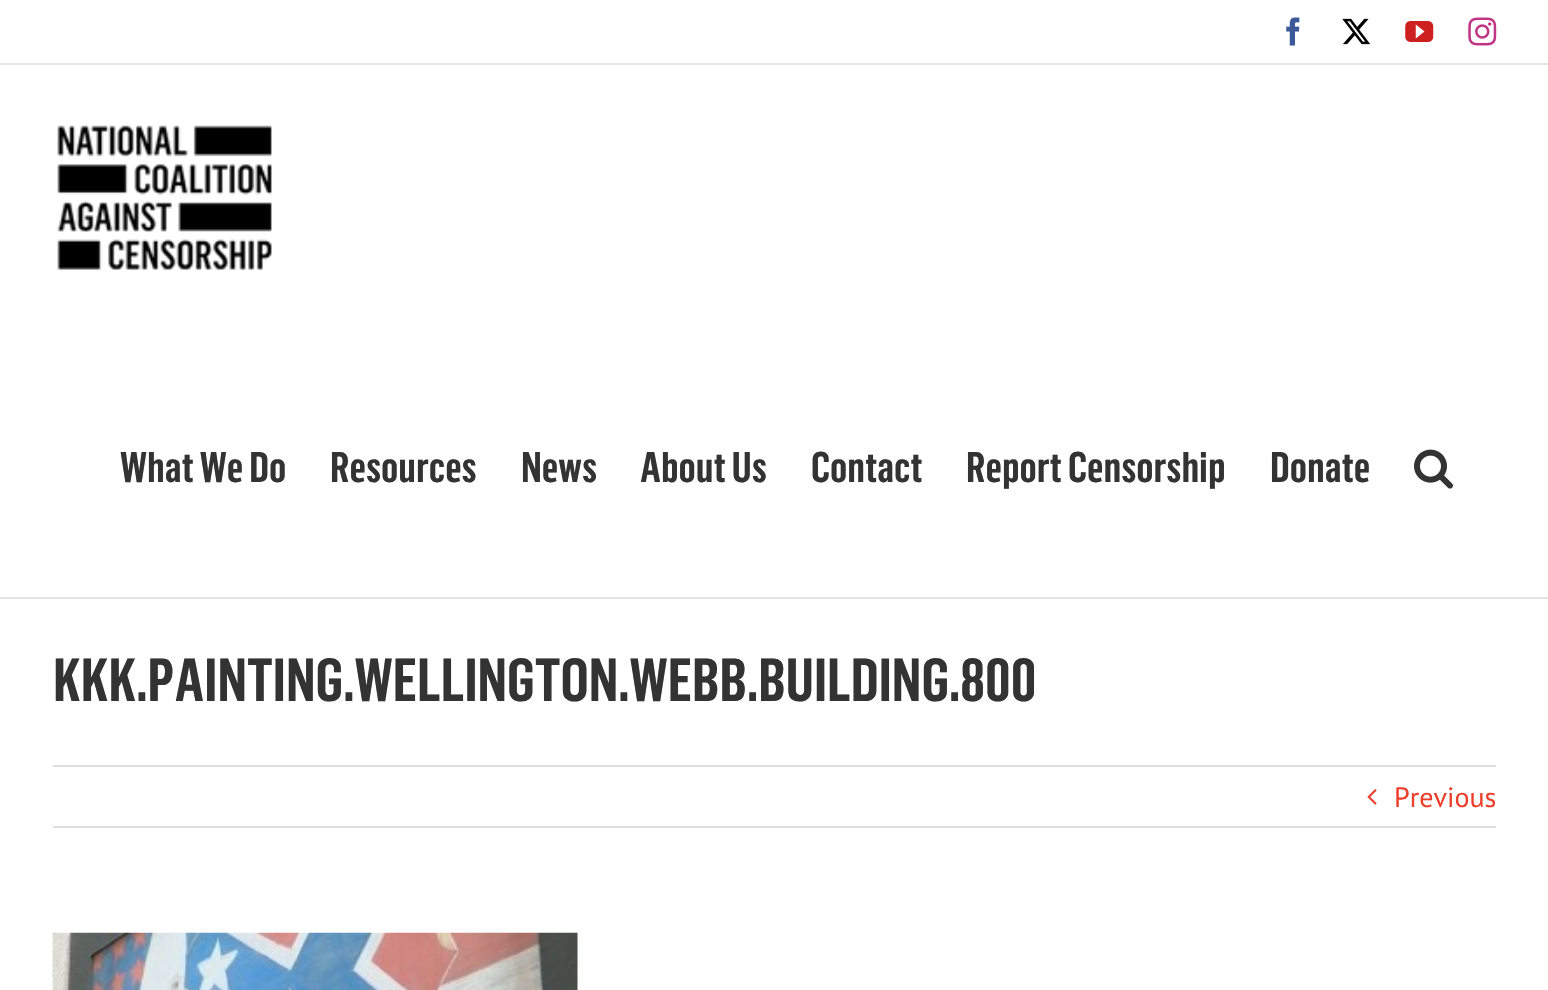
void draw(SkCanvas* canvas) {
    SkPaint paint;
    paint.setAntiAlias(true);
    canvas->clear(0xFFFFFFFF);
    paint.setColor(0xFFE5E5E5);
    canvas->drawRect(SkRect::MakeXYWH(0, 63, 1548, 2), paint);
    canvas->drawImageRect(SkImages::DeferredFromEncodedData(SkData::MakeFromFileName("img1.png")), SkRect::MakeXYWH(1286, 17, 14, 29), SkSamplingOptions());
    canvas->drawImageRect(SkImages::DeferredFromEncodedData(SkData::MakeFromFileName("img2.png")), SkRect::MakeXYWH(1342, 18, 29, 27), SkSamplingOptions());
    canvas->drawImageRect(SkImages::DeferredFromEncodedData(SkData::MakeFromFileName("img3.png")), SkRect::MakeXYWH(1405, 21, 29, 21), SkSamplingOptions());
    canvas->drawImageRect(SkImages::DeferredFromEncodedData(SkData::MakeFromFileName("img4.png")), SkRect::MakeXYWH(1468, 17, 29, 29), SkSamplingOptions());
    canvas->drawRect(SkRect::MakeXYWH(0, 597, 1548, 2), paint);
    canvas->drawImageRect(SkImages::DeferredFromEncodedData(SkData::MakeFromFileName("img5.png")), SkRect::MakeXYWH(57, 125, 215, 145), SkSamplingOptions());
    SkFont font1(fontMgr->matchFamilyStyle("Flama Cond", SkFontStyle(600, SkFontStyle::kNormal_Width, SkFontStyle::kUpright_Slant)), 42);
    font1.setSubpixel(true);
    paint.setColor(0xFF333333);
    canvas->drawString("What We Do", 120, 482, font1, paint);
    canvas->drawString("Resources", 330, 482, font1, paint);
    canvas->drawString("News", 521, 482, font1, paint);
    canvas->drawString("About Us", 640, 482, font1, paint);
    canvas->drawString("Contact", 811, 482, font1, paint);
    canvas->drawString("Report Censorship", 966, 482, font1, paint);
    canvas->drawString("Donate", 1270, 482, font1, paint);
    canvas->drawImageRect(SkImages::DeferredFromEncodedData(SkData::MakeFromFileName("img6.png")), SkRect::MakeXYWH(1414, 449, 39, 40), SkSamplingOptions());
    SkFont font2(fontMgr->matchFamilyStyle("Flama Cond", SkFontStyle(600, SkFontStyle::kNormal_Width, SkFontStyle::kUpright_Slant)), 59.5f);
    font2.setSubpixel(true);
    canvas->drawString("KKK.PAINTING.WELLINGTON.WEBB.BUILDING.800", 53, 701, font2, paint);
    paint.setColor(0xFFE0DEDE);
    canvas->drawRect(SkRect::MakeXYWH(53, 765, 1443, 2), paint);
    canvas->drawRect(SkRect::MakeXYWH(53, 826, 1443, 2), paint);
    canvas->drawImageRect(SkImages::DeferredFromEncodedData(SkData::MakeFromFileName("img7.png")), SkRect::MakeXYWH(1367, 789, 10, 16), SkSamplingOptions());
    SkFont font3(fontMgr->matchFamilyStyle("PT Sans", SkFontStyle::Normal()), 28);
    font3.setSubpixel(true);
    paint.setColor(0xFFEE3E2C);
    canvas->drawString("Previous", 1394, 807, font3, paint);
    canvas->drawImageRect(SkImages::DeferredFromEncodedData(SkData::MakeFromFileName("img8.png")), SkRect::MakeXYWH(52, 932, 526, 58), SkSamplingOptions());
}
